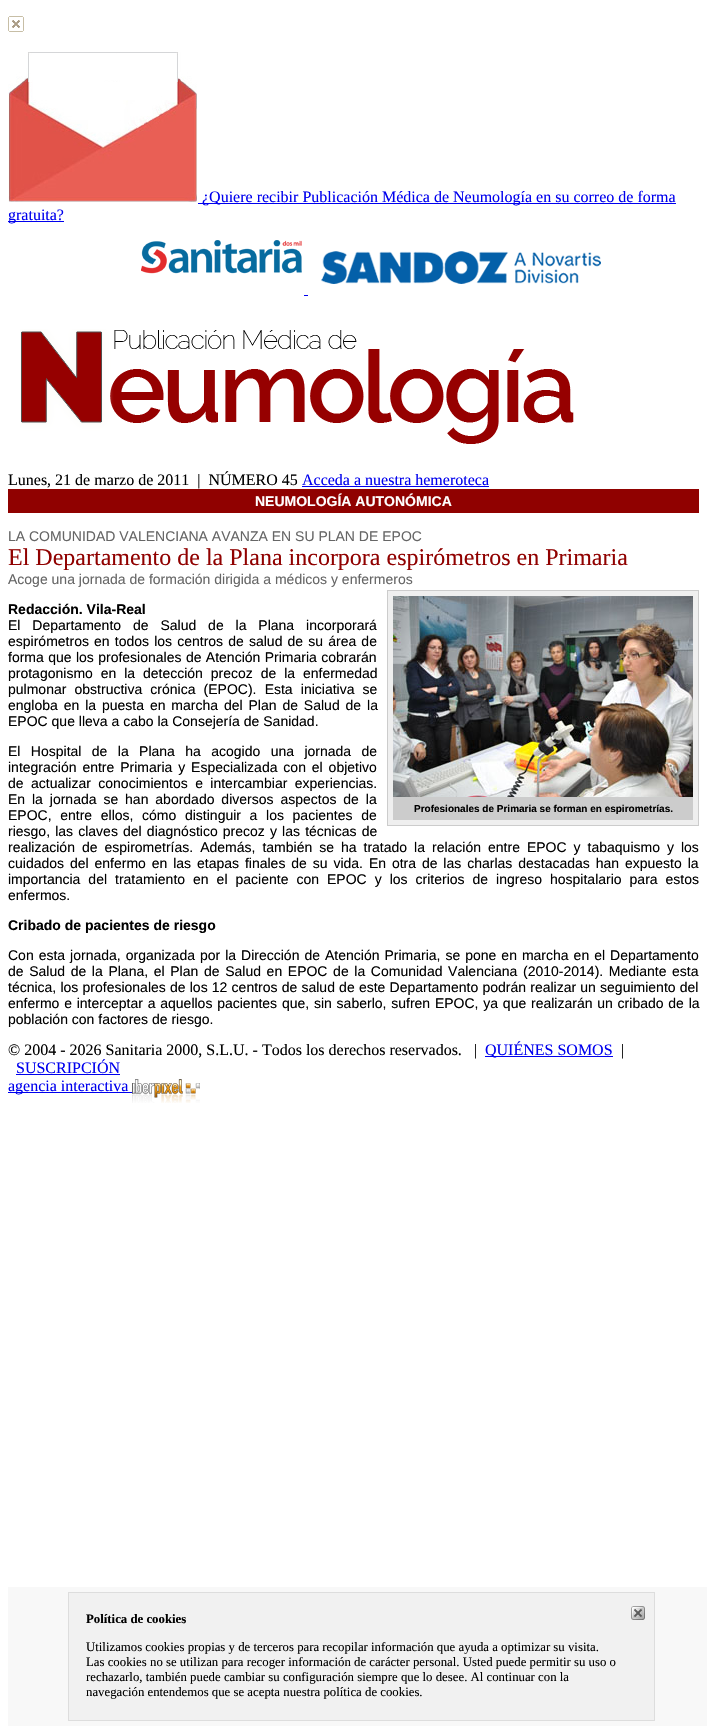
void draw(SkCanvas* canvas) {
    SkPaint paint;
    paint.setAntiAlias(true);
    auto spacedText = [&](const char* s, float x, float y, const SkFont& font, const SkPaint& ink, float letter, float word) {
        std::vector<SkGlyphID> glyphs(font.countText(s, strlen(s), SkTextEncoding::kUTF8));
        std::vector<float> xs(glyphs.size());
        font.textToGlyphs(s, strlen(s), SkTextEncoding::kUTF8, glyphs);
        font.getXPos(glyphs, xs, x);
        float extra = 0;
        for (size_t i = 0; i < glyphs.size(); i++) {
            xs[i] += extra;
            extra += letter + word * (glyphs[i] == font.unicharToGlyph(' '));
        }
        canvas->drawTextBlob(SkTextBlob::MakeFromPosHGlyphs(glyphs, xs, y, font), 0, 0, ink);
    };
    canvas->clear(0xFFFFFFFF);
    canvas->drawImageRect(SkImages::DeferredFromEncodedData(SkData::MakeFromFileName("img1.png")), SkRect::MakeXYWH(8, 16, 16, 16), SkSamplingOptions());
    canvas->drawImageRect(SkImages::DeferredFromEncodedData(SkData::MakeFromFileName("img2.png")), SkRect::MakeXYWH(8, 52, 189, 150), SkSamplingOptions());
    paint.setColor(0xFF0000EE);
    canvas->drawRect(SkRect::MakeXYWH(198, 203, 478, 1), paint);
    SkFont font1(fontMgr->matchFamilyStyle("Liberation Serif", SkFontStyle::Normal()), 16);
    font1.setSubpixel(true);
    canvas->drawString("¿Quiere recibir Publicación Médica de Neumología en su correo de forma", 202, 202, font1, paint);
    canvas->drawRect(SkRect::MakeXYWH(8, 221, 56, 1), paint);
    canvas->drawString("gratuita?", 8, 220, font1, paint);
    canvas->drawImageRect(SkImages::DeferredFromEncodedData(SkData::MakeFromFileName("img3.png")), SkRect::MakeXYWH(141, 240, 161, 34), SkSamplingOptions());
    canvas->drawImageRect(SkImages::DeferredFromEncodedData(SkData::MakeFromFileName("img4.png")), SkRect::MakeXYWH(321, 251, 280, 33), SkSamplingOptions());
    canvas->drawRect(SkRect::MakeXYWH(304, 295, 4, 1), paint);
    canvas->drawImageRect(SkImages::DeferredFromEncodedData(SkData::MakeFromFileName("img5.png")), SkRect::MakeXYWH(20, 329, 554, 115), SkSamplingOptions());
    paint.setColor(0xFF000000);
    canvas->drawString("Lunes, 21 de marzo de 2011  |  NÚMERO 45", 8, 485, font1, paint);
    paint.setColor(0xFF0000EE);
    canvas->drawString("Acceda a nuestra hemeroteca", 302, 485, font1, paint);
    canvas->drawRect(SkRect::MakeXYWH(302, 486, 187, 1), paint);
    paint.setColor(0xFF900100);
    canvas->drawRect(SkRect::MakeXYWH(8, 489, 691, 24), paint);
    SkFont font2(fontMgr->matchFamilyStyle("Liberation Sans", SkFontStyle::Bold()), 14);
    font2.setSubpixel(true);
    paint.setColor(0xFFFFFFFF);
    canvas->drawString("NEUMOLOGÍA AUTONÓMICA", 255, 506, font2, paint);
    SkFont font3(fontMgr->matchFamilyStyle("Liberation Sans", SkFontStyle::Normal()), 14);
    font3.setSubpixel(true);
    paint.setColor(0xFF666666);
    canvas->drawString("LA COMUNIDAD VALENCIANA AVANZA EN SU PLAN DE EPOC", 8, 541, font3, paint);
    SkFont font4(fontMgr->matchFamilyStyle("Liberation Serif", SkFontStyle::Normal()), 24);
    font4.setSubpixel(true);
    paint.setColor(0xFF900100);
    canvas->drawString("El Departamento de la Plana incorpora espirómetros en Primaria", 8, 565, font4, paint);
    paint.setColor(0xFF666666);
    canvas->drawString("Acoge una jornada de formación dirigida a médicos y enfermeros", 8, 584, font3, paint);
    paint.setColor(0xFF000000);
    canvas->drawString("Redacción. Vila-Real", 8, 614, font2, paint);
    spacedText("El Departamento de Salud de la Plana incorporará", 8, 630, font3, paint, 0, 8);
    spacedText("espirómetros en todos los centros de salud de su área de", 8, 646, font3, paint, 0, 1.25f);
    spacedText("forma que los profesionales de Atención Primaria cobrarán", 8, 662, font3, paint, 0, 0.5f);
    spacedText("protagonismo en la detección precoz de la enfermedad", 8, 678, font3, paint, 0, 4);
    spacedText("pulmonar obstructiva crónica (EPOC). Esta iniciativa se", 8, 694, font3, paint, 0, 4.25f);
    spacedText("engloba en la puesta en marcha del Plan de Salud de la", 8, 710, font3, paint, 0, 2);
    canvas->drawString("EPOC que lleva a cabo la Consejería de Sanidad.", 8, 726, font3, paint);
    spacedText("El Hospital de la Plana ha acogido una jornada de", 8, 756, font3, paint, 0, 6.5f);
    spacedText("integración entre Primaria y Especializada con el objetivo", 8, 772, font3, paint, 0, 2);
    spacedText("de actualizar conocimientos e intercambiar experiencias.", 8, 788, font3, paint, 0, 3.5f);
    spacedText("En la jornada se han abordado diversos aspectos de la", 8, 804, font3, paint, 0, 3);
    spacedText("EPOC, entre ellos, cómo distinguir a los pacientes de", 8, 820, font3, paint, 0, 4.75f);
    spacedText("riesgo, las claves del diagnóstico precoz y las técnicas de", 8, 836, font3, paint, 0, 1.25f);
    spacedText("realización de espirometrías. Además, también se ha tratado la relación entre EPOC y tabaquismo y los", 8, 852, font3, paint, 0, 3.1f);
    spacedText("cuidados del enfermo en las etapas finales de su vida. En otra de las charlas destacadas han expuesto la", 8, 868, font3, paint, 0, 2);
    spacedText("importancia del tratamiento en el paciente con EPOC y los criterios de ingreso hospitalario para estos", 8, 884, font3, paint, 0, 4.1f);
    canvas->drawString("enfermos.", 8, 900, font3, paint);
    paint.setColor(0xFFEFEFEF);
    canvas->drawRect(SkRect::MakeXYWH(387.5f, 590.5f, 311, 235), paint);
    paint.setStyle(SkPaint::kStroke_Style);
    paint.setStrokeWidth(1);
    paint.setColor(0xFFCCCCCC);
    canvas->drawRect(SkRect::MakeXYWH(387.5f, 590.5f, 311, 235), paint);
    canvas->drawImageRect(SkImages::DeferredFromEncodedData(SkData::MakeFromFileName("img6.png")), SkRect::MakeXYWH(393, 596, 300, 201), SkSamplingOptions());
    paint.setStyle(SkPaint::kFill_Style);
    canvas->drawRect(SkRect::MakeXYWH(393, 797, 300, 23), paint);
    SkFont font5(fontMgr->matchFamilyStyle("Liberation Sans", SkFontStyle::Bold()), 10);
    font5.setSubpixel(true);
    paint.setColor(0xFF000000);
    canvas->drawString("Profesionales de Primaria se forman en espirometrías.", 414, 812, font5, paint);
    canvas->drawString("Cribado de pacientes de riesgo", 8, 930, font2, paint);
    spacedText("Con esta jornada, organizada por la Dirección de Atención Primaria, se pone en marcha en el Departamento", 8, 960, font3, paint, 0, 1.1f);
    spacedText("de Salud de la Plana, el Plan de Salud en EPOC de la Comunidad Valenciana (2010-2014). Mediante esta", 8, 976, font3, paint, 0, 1.75f);
    spacedText("técnica, los profesionales de los 12 centros de salud de este Departamento podrán realizar un seguimiento del", 8, 992, font3, paint, 0, 0.3f);
    spacedText("enfermo e interceptar a aquellos pacientes que, sin saberlo, sufren EPOC, ya que realizarán un cribado de la", 8, 1008, font3, paint, 0, 0.9f);
    canvas->drawString("población con factores de riesgo.", 8, 1024, font3, paint);
    canvas->drawString("© 2004 - 2026 Sanitaria 2000, S.L.U. - Todos los derechos reservados.", 8, 1055, font1, paint);
    canvas->drawString("|", 474, 1055, font1, paint);
    paint.setColor(0xFF0000EE);
    canvas->drawRect(SkRect::MakeXYWH(485, 1056, 128, 1), paint);
    canvas->drawString("QUIÉNES SOMOS", 485, 1055, font1, paint);
    paint.setColor(0xFF000000);
    canvas->drawString("|", 621, 1055, font1, paint);
    paint.setColor(0xFF0000EE);
    canvas->drawString("SUSCRIPCIÓN", 16, 1073, font1, paint);
    canvas->drawRect(SkRect::MakeXYWH(16, 1074, 104, 1), paint);
    canvas->drawRect(SkRect::MakeXYWH(8, 1092, 124, 1), paint);
    canvas->drawString("agencia interactiva", 8, 1091, font1, paint);
    canvas->drawImageRect(SkImages::DeferredFromEncodedData(SkData::MakeFromFileName("img7.png")), SkRect::MakeXYWH(132, 1079, 68, 24), SkSamplingOptions());
    paint.setColor(0xFFF8F8F8);
    canvas->drawRect(SkRect::MakeXYWH(8, 1587, 699, 139), paint);
    paint.setColor(0xFFF1F1F1);
    canvas->drawRect(SkRect::MakeXYWH(68.5f, 1592.5f, 586, 128), paint);
    paint.setStyle(SkPaint::kStroke_Style);
    paint.setColor(0xFFDDDDDD);
    canvas->drawRect(SkRect::MakeXYWH(68.5f, 1592.5f, 586, 128), paint);
    SkFont font6(fontMgr->matchFamilyStyle("Liberation Serif", SkFontStyle::Bold()), 12.8f);
    font6.setSubpixel(true);
    paint.setStyle(SkPaint::kFill_Style);
    paint.setColor(0xFF000000);
    canvas->drawString("Política de cookies", 86, 1623, font6, paint);
    canvas->drawImageRect(SkImages::DeferredFromEncodedData(SkData::MakeFromFileName("img8.png")), SkRect::MakeXYWH(631, 1606, 14, 14), SkSamplingOptions());
    SkFont font7(fontMgr->matchFamilyStyle("Liberation Serif", SkFontStyle::Normal()), 12.8f);
    font7.setSubpixel(true);
    canvas->drawString("Utilizamos cookies propias y de terceros para recopilar información que ayuda a optimizar su visita.", 86, 1651, font7, paint);
    canvas->drawString("Las cookies no se utilizan para recoger información de carácter personal. Usted puede permitir su uso o", 86, 1666, font7, paint);
    canvas->drawString("rechazarlo, también puede cambiar su configuración siempre que lo desee. Al continuar con la", 86, 1681, font7, paint);
    canvas->drawString("navegación entendemos que se acepta nuestra política de cookies.", 86, 1696, font7, paint);
}
